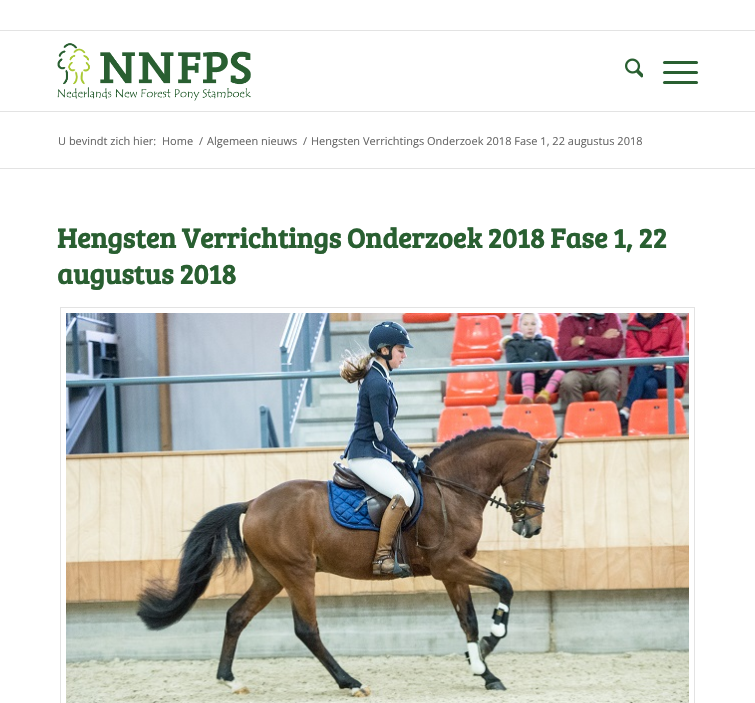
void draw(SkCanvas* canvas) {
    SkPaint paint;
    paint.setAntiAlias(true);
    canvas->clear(0xFFFFFFFF);
    paint.setColor(0xFFE3E3E3);
    canvas->drawRect(SkRect::MakeXYWH(0, 30, 755, 1), paint);
    canvas->drawRect(SkRect::MakeXYWH(0, 111, 755, 1), paint);
    canvas->drawImageRect(SkImages::DeferredFromEncodedData(SkData::MakeFromFileName("img1.png")), SkRect::MakeXYWH(57, 43, 194, 58), SkSamplingOptions());
    canvas->drawImageRect(SkImages::DeferredFromEncodedData(SkData::MakeFromFileName("img2.png")), SkRect::MakeXYWH(625, 58, 18, 20), SkSamplingOptions());
    paint.setColor(0xFF295F31);
    canvas->drawRoundRect(SkRect::MakeXYWH(663, 71, 35, 3), 1.5f, 1.5f, paint);
    canvas->drawRoundRect(SkRect::MakeXYWH(663, 61, 35, 3), 1.5f, 1.5f, paint);
    canvas->drawRoundRect(SkRect::MakeXYWH(663, 81, 35, 3), 1.5f, 1.5f, paint);
    SkFont font1(fontMgr->matchFamilyStyle("Open Sans", SkFontStyle::Normal()), 11);
    font1.setSubpixel(true);
    paint.setColor(0xFF666666);
    canvas->drawString("U bevindt zich hier:", 58, 145, font1, paint);
    canvas->drawString("Home", 162, 145, font1, paint);
    canvas->drawString("/", 199, 145, font1, paint);
    canvas->drawString("Algemeen nieuws", 207, 145, font1, paint);
    canvas->drawString("/", 303, 145, font1, paint);
    canvas->drawString("Hengsten Verrichtings Onderzoek 2018 Fase 1, 22 augustus 2018", 311, 145, font1, paint);
    paint.setColor(0xFFE3E3E3);
    canvas->drawRect(SkRect::MakeXYWH(0, 168, 755, 1), paint);
    SkFont font2(fontMgr->matchFamilyStyle("Bree Serif", SkFontStyle::Bold()), 28);
    font2.setSubpixel(true);
    paint.setColor(0xFF295F31);
    canvas->drawString("Hengsten Verrichtings Onderzoek 2018 Fase 1, 22", 57, 248, font2, paint);
    canvas->drawString("augustus 2018", 57, 284, font2, paint);
    paint.setStyle(SkPaint::kStroke_Style);
    paint.setStrokeWidth(1);
    paint.setColor(0xFFE3E3E3);
    canvas->drawRect(SkRect::MakeXYWH(60.5f, 307.5f, 634, 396), paint);
    canvas->drawImageRect(SkImages::DeferredFromEncodedData(SkData::MakeFromFileName("img3.png")), SkRect::MakeXYWH(66, 313, 623, 390), SkSamplingOptions());
}
